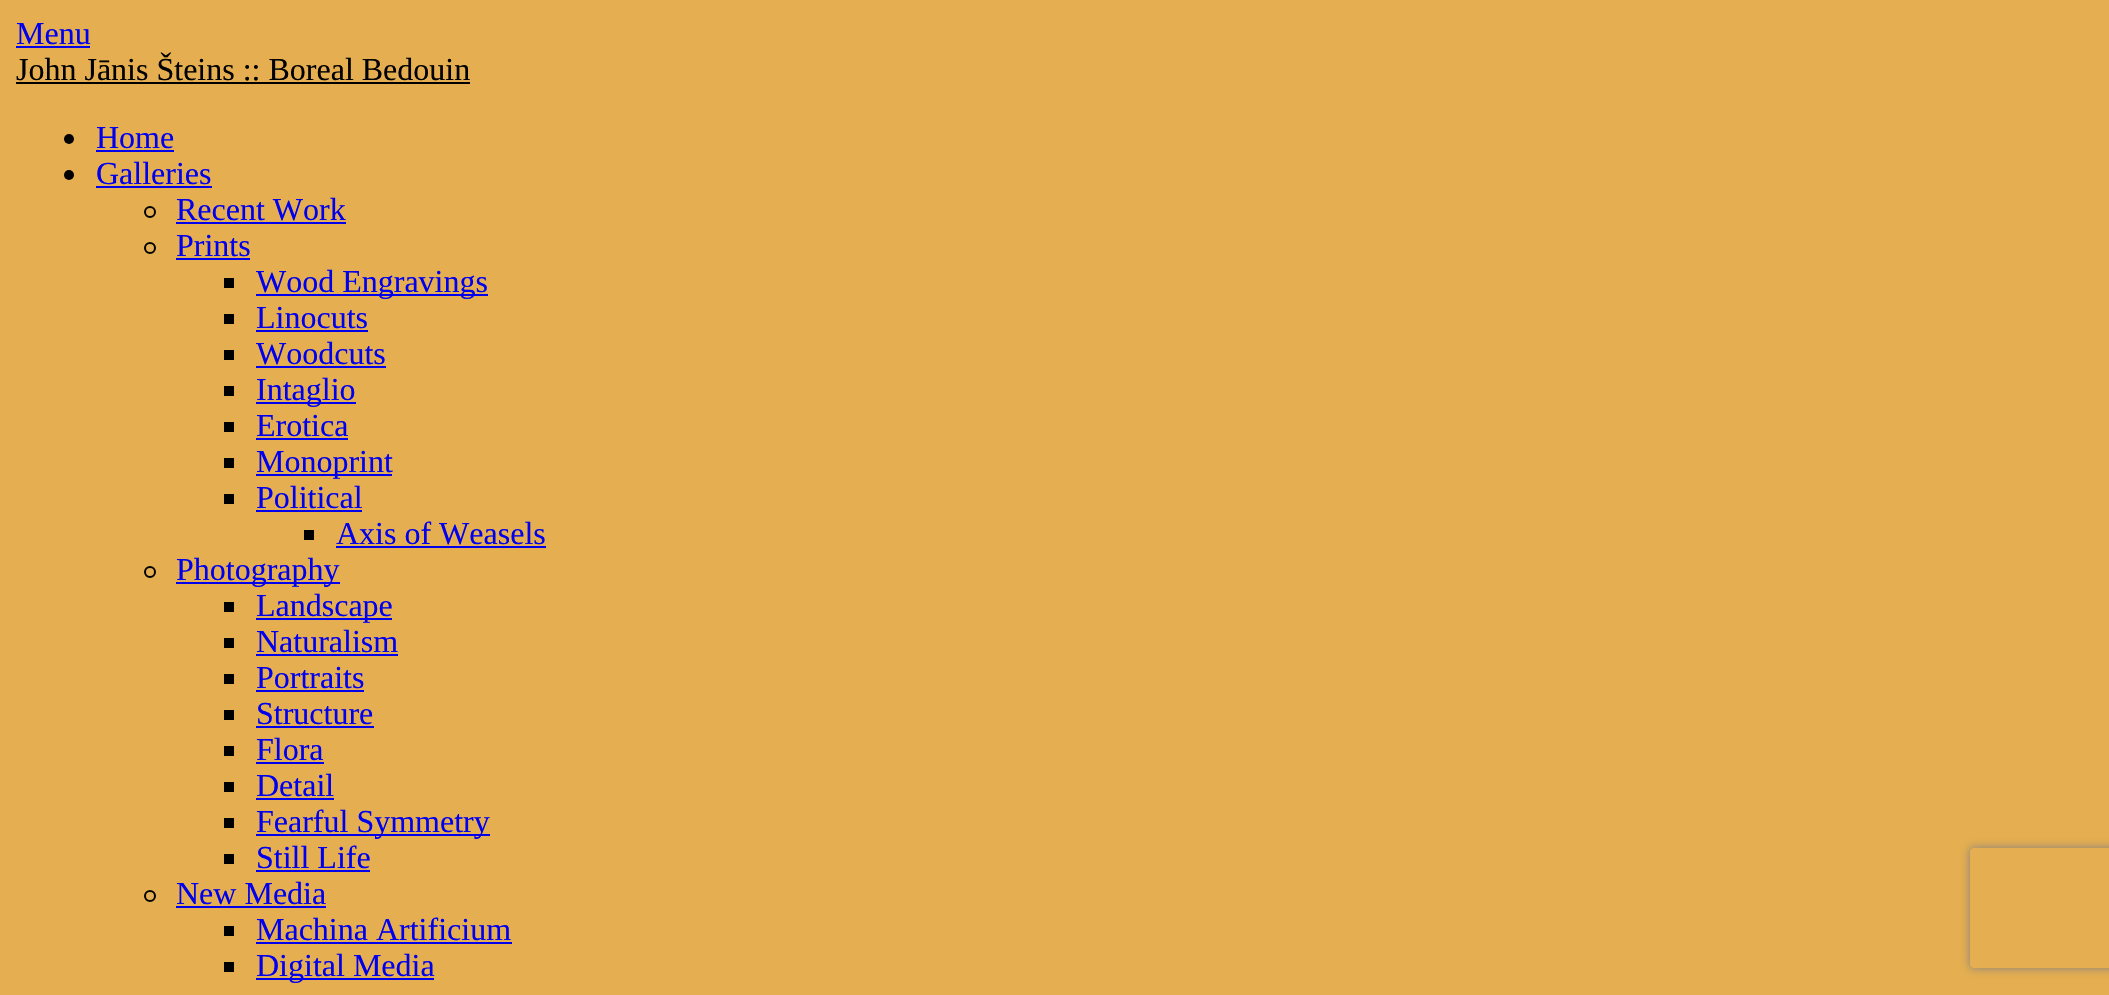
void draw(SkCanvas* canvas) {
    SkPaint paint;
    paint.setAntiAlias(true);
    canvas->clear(0xFFE5AE50);
    SkFont font1(fontMgr->matchFamilyStyle("Liberation Serif", SkFontStyle::Normal()), 32);
    font1.setSubpixel(true);
    paint.setColor(0xFF0000EE);
    canvas->drawString("Menu", 16, 44, font1, paint);
    canvas->drawRect(SkRect::MakeXYWH(16, 46, 74, 2), paint);
    paint.setColor(0xFF000000);
    canvas->drawString("John Jānis Šteins :: Boreal Bedouin", 16, 80, font1, paint);
    canvas->drawRect(SkRect::MakeXYWH(16, 82, 454, 2), paint);
    canvas->drawCircle(69, 139, 5, paint);
    paint.setColor(0xFF0000EE);
    canvas->drawString("Home", 96, 148, font1, paint);
    canvas->drawRect(SkRect::MakeXYWH(96, 150, 78, 2), paint);
    paint.setColor(0xFF000000);
    canvas->drawCircle(69, 175, 5, paint);
    paint.setColor(0xFF0000EE);
    canvas->drawString("Galleries", 96, 184, font1, paint);
    canvas->drawRect(SkRect::MakeXYWH(96, 186, 116, 2), paint);
    paint.setStyle(SkPaint::kStroke_Style);
    paint.setStrokeWidth(2);
    paint.setColor(0xFF000000);
    canvas->drawCircle(150, 212, 5, paint);
    paint.setStyle(SkPaint::kFill_Style);
    paint.setColor(0xFF0000EE);
    canvas->drawString("Recent Work", 176, 220, font1, paint);
    canvas->drawRect(SkRect::MakeXYWH(176, 222, 170, 2), paint);
    paint.setStyle(SkPaint::kStroke_Style);
    paint.setColor(0xFF000000);
    canvas->drawCircle(150, 248, 5, paint);
    paint.setStyle(SkPaint::kFill_Style);
    paint.setColor(0xFF0000EE);
    canvas->drawString("Prints", 176, 256, font1, paint);
    canvas->drawRect(SkRect::MakeXYWH(176, 258, 74, 2), paint);
    paint.setColor(0xFF000000);
    canvas->drawRect(SkRect::MakeXYWH(224, 278, 10, 10), paint);
    paint.setColor(0xFF0000EE);
    canvas->drawRect(SkRect::MakeXYWH(256, 294, 232, 2), paint);
    canvas->drawString("Wood Engravings", 256, 292, font1, paint);
    paint.setColor(0xFF000000);
    canvas->drawRect(SkRect::MakeXYWH(224, 314, 10, 10), paint);
    paint.setColor(0xFF0000EE);
    canvas->drawString("Linocuts", 256, 328, font1, paint);
    canvas->drawRect(SkRect::MakeXYWH(256, 330, 112, 2), paint);
    paint.setColor(0xFF000000);
    canvas->drawRect(SkRect::MakeXYWH(224, 350, 10, 10), paint);
    paint.setColor(0xFF0000EE);
    canvas->drawString("Woodcuts", 256, 364, font1, paint);
    canvas->drawRect(SkRect::MakeXYWH(256, 366, 130, 2), paint);
    paint.setColor(0xFF000000);
    canvas->drawRect(SkRect::MakeXYWH(224, 386, 10, 10), paint);
    paint.setColor(0xFF0000EE);
    canvas->drawRect(SkRect::MakeXYWH(256, 402, 100, 2), paint);
    canvas->drawString("Intaglio", 256, 400, font1, paint);
    paint.setColor(0xFF000000);
    canvas->drawRect(SkRect::MakeXYWH(224, 422, 10, 10), paint);
    paint.setColor(0xFF0000EE);
    canvas->drawString("Erotica", 256, 436, font1, paint);
    canvas->drawRect(SkRect::MakeXYWH(256, 438, 92, 2), paint);
    paint.setColor(0xFF000000);
    canvas->drawRect(SkRect::MakeXYWH(224, 458, 10, 10), paint);
    paint.setColor(0xFF0000EE);
    canvas->drawRect(SkRect::MakeXYWH(256, 474, 136, 2), paint);
    canvas->drawString("Monoprint", 256, 472, font1, paint);
    paint.setColor(0xFF000000);
    canvas->drawRect(SkRect::MakeXYWH(224, 494, 10, 10), paint);
    paint.setColor(0xFF0000EE);
    canvas->drawString("Political", 256, 508, font1, paint);
    canvas->drawRect(SkRect::MakeXYWH(256, 510, 106, 2), paint);
    paint.setColor(0xFF000000);
    canvas->drawRect(SkRect::MakeXYWH(304, 530, 10, 10), paint);
    paint.setColor(0xFF0000EE);
    canvas->drawString("Axis of Weasels", 336, 544, font1, paint);
    canvas->drawRect(SkRect::MakeXYWH(336, 546, 210, 2), paint);
    paint.setStyle(SkPaint::kStroke_Style);
    paint.setColor(0xFF000000);
    canvas->drawCircle(150, 572, 5, paint);
    paint.setStyle(SkPaint::kFill_Style);
    paint.setColor(0xFF0000EE);
    canvas->drawRect(SkRect::MakeXYWH(176, 582, 164, 2), paint);
    canvas->drawString("Photography", 176, 580, font1, paint);
    paint.setColor(0xFF000000);
    canvas->drawRect(SkRect::MakeXYWH(224, 602, 10, 10), paint);
    paint.setColor(0xFF0000EE);
    canvas->drawRect(SkRect::MakeXYWH(256, 618, 136, 2), paint);
    canvas->drawString("Landscape", 256, 616, font1, paint);
    paint.setColor(0xFF000000);
    canvas->drawRect(SkRect::MakeXYWH(224, 638, 10, 10), paint);
    paint.setColor(0xFF0000EE);
    canvas->drawString("Naturalism", 256, 652, font1, paint);
    canvas->drawRect(SkRect::MakeXYWH(256, 654, 142, 2), paint);
    paint.setColor(0xFF000000);
    canvas->drawRect(SkRect::MakeXYWH(224, 674, 10, 10), paint);
    paint.setColor(0xFF0000EE);
    canvas->drawString("Portraits", 256, 688, font1, paint);
    canvas->drawRect(SkRect::MakeXYWH(256, 690, 108, 2), paint);
    paint.setColor(0xFF000000);
    canvas->drawRect(SkRect::MakeXYWH(224, 710, 10, 10), paint);
    paint.setColor(0xFF0000EE);
    canvas->drawString("Structure", 256, 724, font1, paint);
    canvas->drawRect(SkRect::MakeXYWH(256, 726, 118, 2), paint);
    paint.setColor(0xFF000000);
    canvas->drawRect(SkRect::MakeXYWH(224, 746, 10, 10), paint);
    paint.setColor(0xFF0000EE);
    canvas->drawString("Flora", 256, 760, font1, paint);
    canvas->drawRect(SkRect::MakeXYWH(256, 762, 68, 2), paint);
    paint.setColor(0xFF000000);
    canvas->drawRect(SkRect::MakeXYWH(224, 782, 10, 10), paint);
    paint.setColor(0xFF0000EE);
    canvas->drawString("Detail", 256, 796, font1, paint);
    canvas->drawRect(SkRect::MakeXYWH(256, 798, 78, 2), paint);
    paint.setColor(0xFF000000);
    canvas->drawRect(SkRect::MakeXYWH(224, 818, 10, 10), paint);
    paint.setColor(0xFF0000EE);
    canvas->drawRect(SkRect::MakeXYWH(256, 834, 234, 2), paint);
    canvas->drawString("Fearful Symmetry", 256, 832, font1, paint);
    paint.setColor(0xFF000000);
    canvas->drawRect(SkRect::MakeXYWH(224, 854, 10, 10), paint);
    paint.setColor(0xFF0000EE);
    canvas->drawString("Still Life", 256, 868, font1, paint);
    canvas->drawRect(SkRect::MakeXYWH(256, 870, 114, 2), paint);
    paint.setStyle(SkPaint::kStroke_Style);
    paint.setColor(0xFF000000);
    canvas->drawCircle(150, 896, 5, paint);
    paint.setStyle(SkPaint::kFill_Style);
    paint.setColor(0xFF0000EE);
    canvas->drawString("New Media", 176, 904, font1, paint);
    canvas->drawRect(SkRect::MakeXYWH(176, 906, 150, 2), paint);
    paint.setColor(0xFF000000);
    canvas->drawRect(SkRect::MakeXYWH(224, 926, 10, 10), paint);
    paint.setColor(0xFF0000EE);
    canvas->drawString("Machina Artificium", 256, 940, font1, paint);
    canvas->drawRect(SkRect::MakeXYWH(256, 942, 256, 2), paint);
    paint.setColor(0xFF000000);
    canvas->drawRect(SkRect::MakeXYWH(224, 962, 10, 10), paint);
    paint.setColor(0xFF0000EE);
    canvas->drawRect(SkRect::MakeXYWH(256, 978, 178, 2), paint);
    canvas->drawString("Digital Media", 256, 976, font1, paint);
    canvas->save();
    canvas->clipPath(SkPathBuilder(SkPathFillType::kEvenOdd).moveTo(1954, 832).lineTo(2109, 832).lineTo(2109, 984).lineTo(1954, 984).close().moveTo(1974, 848).lineTo(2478, 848).cubicTo(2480, 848, 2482, 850, 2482, 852).lineTo(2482, 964).cubicTo(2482, 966, 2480, 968, 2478, 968).lineTo(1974, 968).cubicTo(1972, 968, 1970, 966, 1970, 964).lineTo(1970, 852).cubicTo(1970, 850, 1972, 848, 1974, 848).close().detach(), true);
    paint.setColor(0xFF808080);
    paint.setMaskFilter(SkMaskFilter::MakeBlur(kNormal_SkBlurStyle, 5));
    canvas->drawRoundRect(SkRect::MakeXYWH(1970, 848, 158, 120), 4, 4, paint);
    paint.setMaskFilter(nullptr);
    canvas->restore();
}
